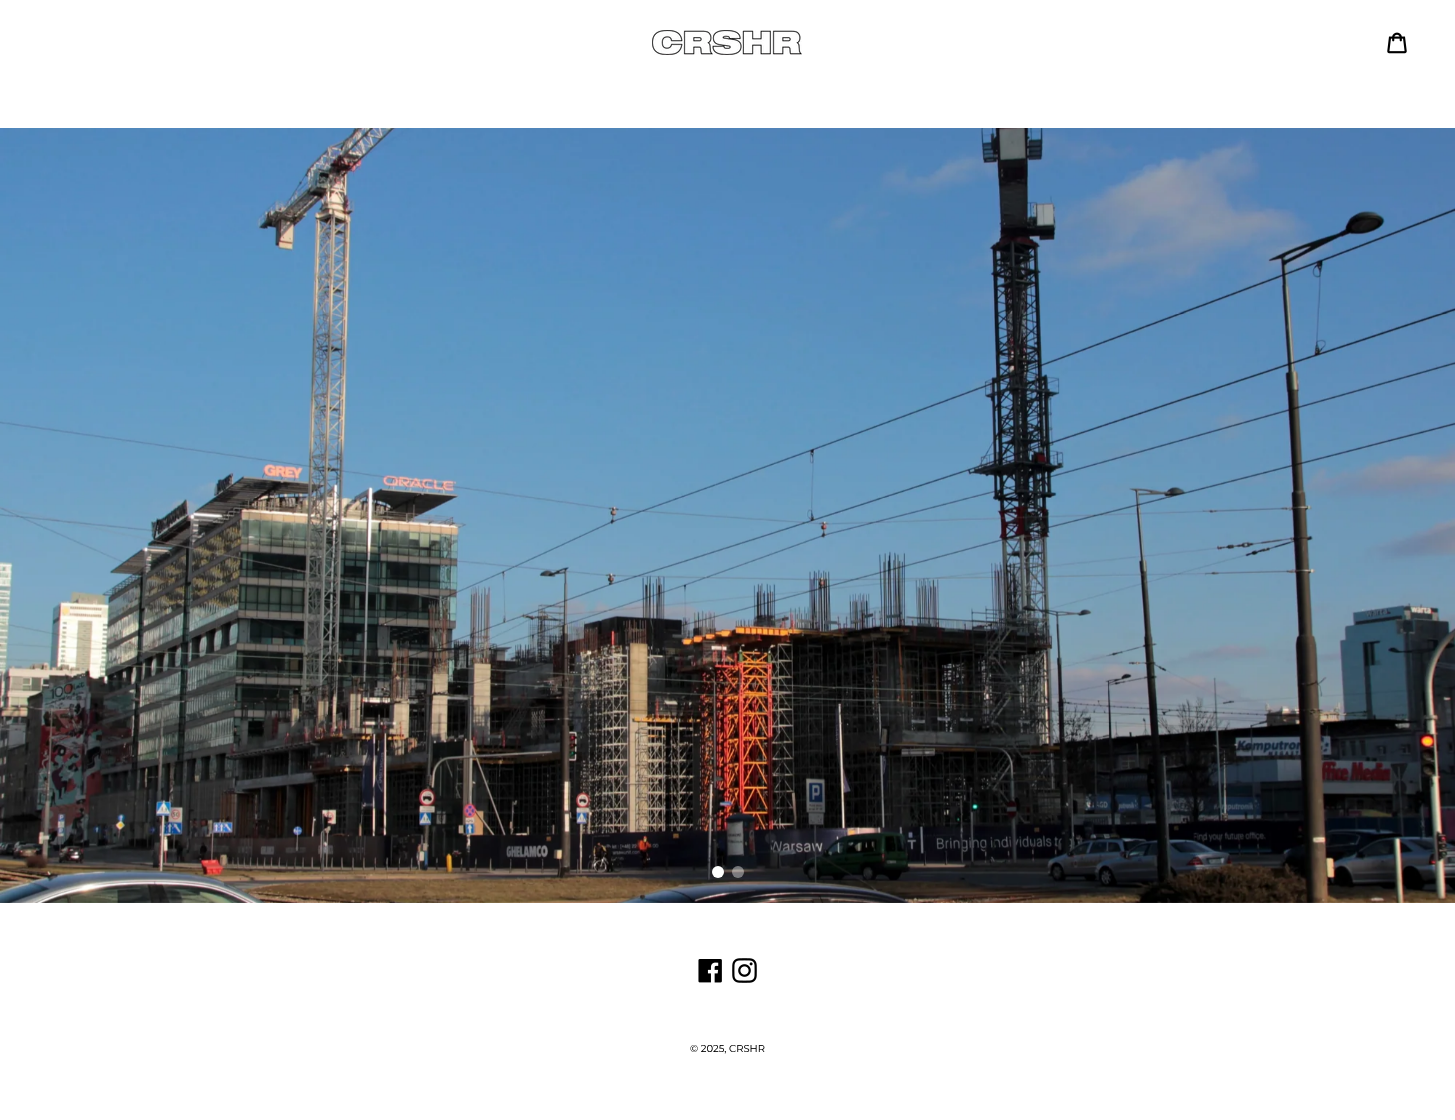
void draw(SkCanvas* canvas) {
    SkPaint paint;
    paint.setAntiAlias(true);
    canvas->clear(0xFFFFFFFF);
    canvas->drawImageRect(SkImages::DeferredFromEncodedData(SkData::MakeFromFileName("img1.png")), SkRect::MakeXYWH(652, 30, 150, 25), SkSamplingOptions());
    canvas->drawImageRect(SkImages::DeferredFromEncodedData(SkData::MakeFromFileName("img2.png")), SkRect::MakeXYWH(1387, 32, 20, 22), SkSamplingOptions());
    canvas->drawImageRect(SkImages::DeferredFromEncodedData(SkData::MakeFromFileName("img3.png")), SkRect::MakeXYWH(0, 128, 1455, 775), SkSamplingOptions());
    paint.setColor(0xFFFFFFFF);
    canvas->drawCircle(718, 872, 6, paint);
    paint.setColor(0x66FFFFFF);
    canvas->drawCircle(738, 872, 6, paint);
    canvas->drawImageRect(SkImages::DeferredFromEncodedData(SkData::MakeFromFileName("img4.png")), SkRect::MakeXYWH(698, 959, 24, 24), SkSamplingOptions());
    canvas->drawImageRect(SkImages::DeferredFromEncodedData(SkData::MakeFromFileName("img5.png")), SkRect::MakeXYWH(732, 958, 25, 25), SkSamplingOptions());
    SkFont font1(fontMgr->matchFamilyStyle("Montserrat", SkFontStyle(100, SkFontStyle::kNormal_Width, SkFontStyle::kUpright_Slant)), 10);
    font1.setSubpixel(true);
    paint.setColor(0xFF000000);
    canvas->drawString("© 2025, CRSHR", 690, 1052, font1, paint);
}
